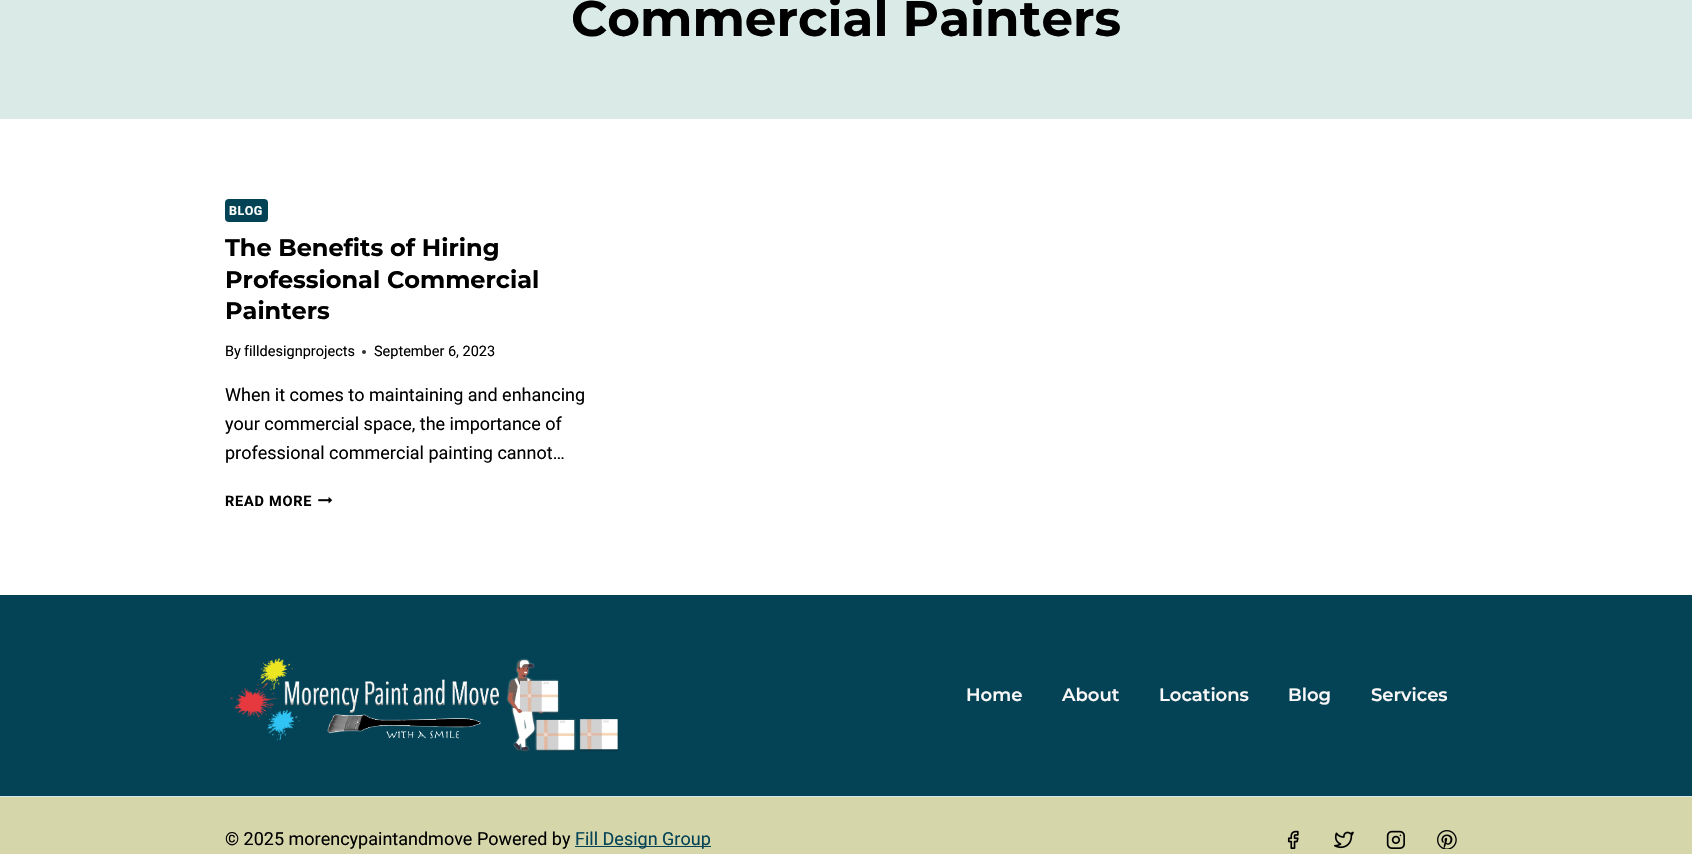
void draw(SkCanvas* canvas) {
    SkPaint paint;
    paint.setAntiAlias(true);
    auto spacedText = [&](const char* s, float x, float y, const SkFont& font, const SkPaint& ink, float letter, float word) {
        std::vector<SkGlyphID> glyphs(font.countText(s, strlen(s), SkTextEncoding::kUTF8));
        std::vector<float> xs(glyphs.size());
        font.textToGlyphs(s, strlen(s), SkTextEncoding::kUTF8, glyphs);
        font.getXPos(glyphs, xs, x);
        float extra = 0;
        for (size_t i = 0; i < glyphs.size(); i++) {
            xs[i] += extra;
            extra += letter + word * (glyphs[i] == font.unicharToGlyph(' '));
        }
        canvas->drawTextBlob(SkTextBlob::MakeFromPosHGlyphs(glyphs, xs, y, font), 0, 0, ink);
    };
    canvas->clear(0xFFFFFFFF);
    paint.setColor(0xFFDAEAE7);
    canvas->drawRect(SkRect::MakeXYWH(0, 0, 1692, 119), paint);
    SkFont font1(fontMgr->matchFamilyStyle("Montserrat", SkFontStyle::Bold()), 50);
    font1.setSubpixel(true);
    paint.setColor(0xFF000000);
    canvas->drawString("Commercial Painters", 571, 36, font1, paint);
    paint.setColor(0xFF044355);
    canvas->drawRoundRect(SkRect::MakeXYWH(225, 199, 43, 23), 4, 4, paint);
    SkFont font2(fontMgr->matchFamilyStyle("Roboto", SkFontStyle::Bold()), 12.5f);
    font2.setSubpixel(true);
    paint.setColor(0xFFFFFFFF);
    spacedText("BLOG", 229, 215, font2, paint, 0.5f, 0);
    SkFont font3(fontMgr->matchFamilyStyle("Montserrat", SkFontStyle::Bold()), 24);
    font3.setSubpixel(true);
    paint.setColor(0xFF000000);
    canvas->drawString("The Benefits of Hiring", 225, 256, font3, paint);
    canvas->drawString("Professional Commercial", 225, 288, font3, paint);
    canvas->drawString("Painters", 225, 319, font3, paint);
    SkFont font4(fontMgr->matchFamilyStyle("Roboto", SkFontStyle::Normal()), 14.5f);
    font4.setSubpixel(true);
    canvas->drawString("By", 225, 356, font4, paint);
    canvas->drawString("filldesignprojects", 244, 356, font4, paint);
    paint.setColor(0xFF343434);
    canvas->drawCircle(364, 352, 2, paint);
    paint.setColor(0xFF000000);
    canvas->drawString("September 6, 2023", 374, 356, font4, paint);
    SkFont font5(fontMgr->matchFamilyStyle("Roboto", SkFontStyle::Normal()), 18);
    font5.setSubpixel(true);
    canvas->drawString("When it comes to maintaining and enhancing", 225, 401, font5, paint);
    canvas->drawString("your commercial space, the importance of", 225, 430, font5, paint);
    canvas->drawString("professional commercial painting cannot…", 225, 459, font5, paint);
    SkFont font6(fontMgr->matchFamilyStyle("Roboto", SkFontStyle::Bold()), 14.5f);
    font6.setSubpixel(true);
    spacedText("READ MORE", 225, 506, font6, paint, 0.75f, 0);
    canvas->drawImageRect(SkImages::DeferredFromEncodedData(SkData::MakeFromFileName("img1.png")), SkRect::MakeXYWH(318, 497, 15, 7), SkSamplingOptions());
    paint.setColor(0xFF044355);
    canvas->drawRect(SkRect::MakeXYWH(0, 595, 1692, 201), paint);
    canvas->drawImageRect(SkImages::DeferredFromEncodedData(SkData::MakeFromFileName("img2.png")), SkRect::MakeXYWH(230, 658, 389, 94), SkSamplingOptions());
    SkFont font7(fontMgr->matchFamilyStyle("Montserrat", SkFontStyle(600, SkFontStyle::kNormal_Width, SkFontStyle::kUpright_Slant)), 18);
    font7.setSubpixel(true);
    paint.setColor(0xFFF9F7F7);
    canvas->drawString("Home", 966, 701, font7, paint);
    canvas->drawString("About", 1062, 701, font7, paint);
    canvas->drawString("Locations", 1159, 701, font7, paint);
    canvas->drawString("Blog", 1288, 701, font7, paint);
    canvas->drawString("Services", 1371, 701, font7, paint);
    paint.setColor(0xFFD6D6AB);
    canvas->drawRect(SkRect::MakeXYWH(0, 797, 1692, 57), paint);
    paint.setColor(0xFFD2E8EB);
    canvas->drawRect(SkRect::MakeXYWH(0, 796, 1692, 1), paint);
    paint.setColor(0xFF000000);
    canvas->drawString("© 2025 morencypaintandmove Powered by", 225, 845, font5, paint);
    paint.setColor(0xFF044355);
    canvas->drawRect(SkRect::MakeXYWH(575, 846, 136, 1), paint);
    canvas->drawString("Fill Design Group", 575, 845, font5, paint);
    canvas->drawImageRect(SkImages::DeferredFromEncodedData(SkData::MakeFromFileName("img3.png")), SkRect::MakeXYWH(1287, 830, 12, 19), SkSamplingOptions());
    canvas->drawImageRect(SkImages::DeferredFromEncodedData(SkData::MakeFromFileName("img4.png")), SkRect::MakeXYWH(1334, 831, 20, 18), SkSamplingOptions());
    canvas->drawImageRect(SkImages::DeferredFromEncodedData(SkData::MakeFromFileName("img5.png")), SkRect::MakeXYWH(1386, 830, 19, 19), SkSamplingOptions());
    canvas->drawImageRect(SkImages::DeferredFromEncodedData(SkData::MakeFromFileName("img6.png")), SkRect::MakeXYWH(1437, 830, 20, 19), SkSamplingOptions());
}
